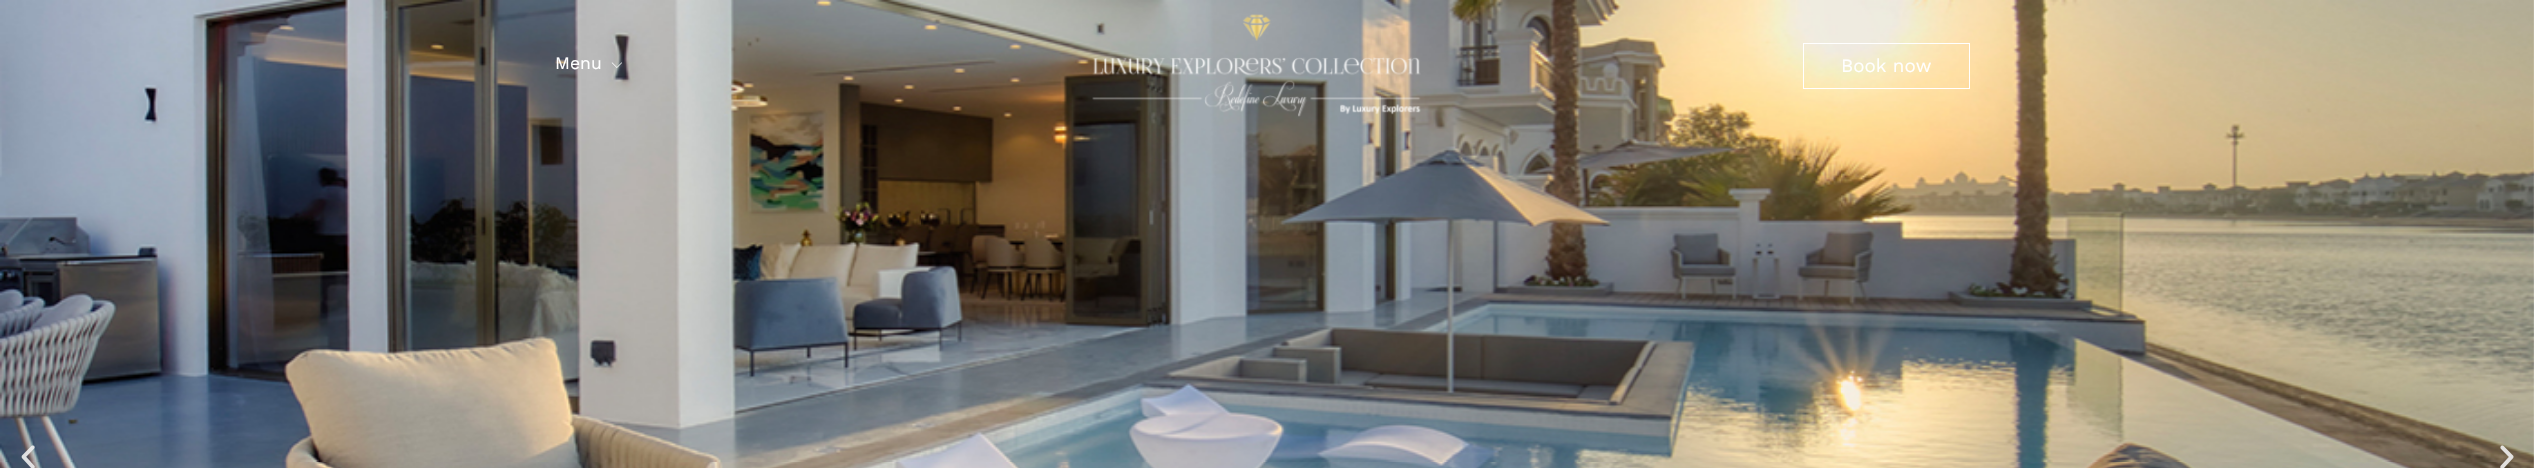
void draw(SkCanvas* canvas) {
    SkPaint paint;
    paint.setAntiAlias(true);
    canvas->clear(0xFFFFFFFF);
    canvas->drawImageRect(SkImages::DeferredFromEncodedData(SkData::MakeFromFileName("img1.png")), SkRect::MakeXYWH(0, 0, 2534, 468), SkSamplingOptions());
    canvas->drawImageRect(SkImages::DeferredFromEncodedData(SkData::MakeFromFileName("img2.png")), SkRect::MakeXYWH(21, 445, 14, 23), SkSamplingOptions());
    canvas->drawImageRect(SkImages::DeferredFromEncodedData(SkData::MakeFromFileName("img3.png")), SkRect::MakeXYWH(2500, 445, 14, 23), SkSamplingOptions());
    SkFont font1(fontMgr->matchFamilyStyle("Work Sans", SkFontStyle::Normal()), 17.5f);
    font1.setSubpixel(true);
    paint.setColor(0xFFFFFFFF);
    canvas->drawString("Menu", 555, 69, font1, paint);
    canvas->drawImageRect(SkImages::DeferredFromEncodedData(SkData::MakeFromFileName("img4.png")), SkRect::MakeXYWH(611, 62, 11, 6), SkSamplingOptions());
    canvas->drawImageRect(SkImages::DeferredFromEncodedData(SkData::MakeFromFileName("img5.png")), SkRect::MakeXYWH(1092, 14, 329, 103), SkSamplingOptions());
    paint.setStyle(SkPaint::kStroke_Style);
    paint.setStrokeWidth(1);
    canvas->drawRect(SkRect::MakeXYWH(1803.5f, 43.5f, 166, 45), paint);
    SkFont font2(fontMgr->matchFamilyStyle("Work Sans", SkFontStyle::Normal()), 18.75f);
    font2.setSubpixel(true);
    paint.setStyle(SkPaint::kFill_Style);
    canvas->drawString("Book now", 1841, 72, font2, paint);
}
